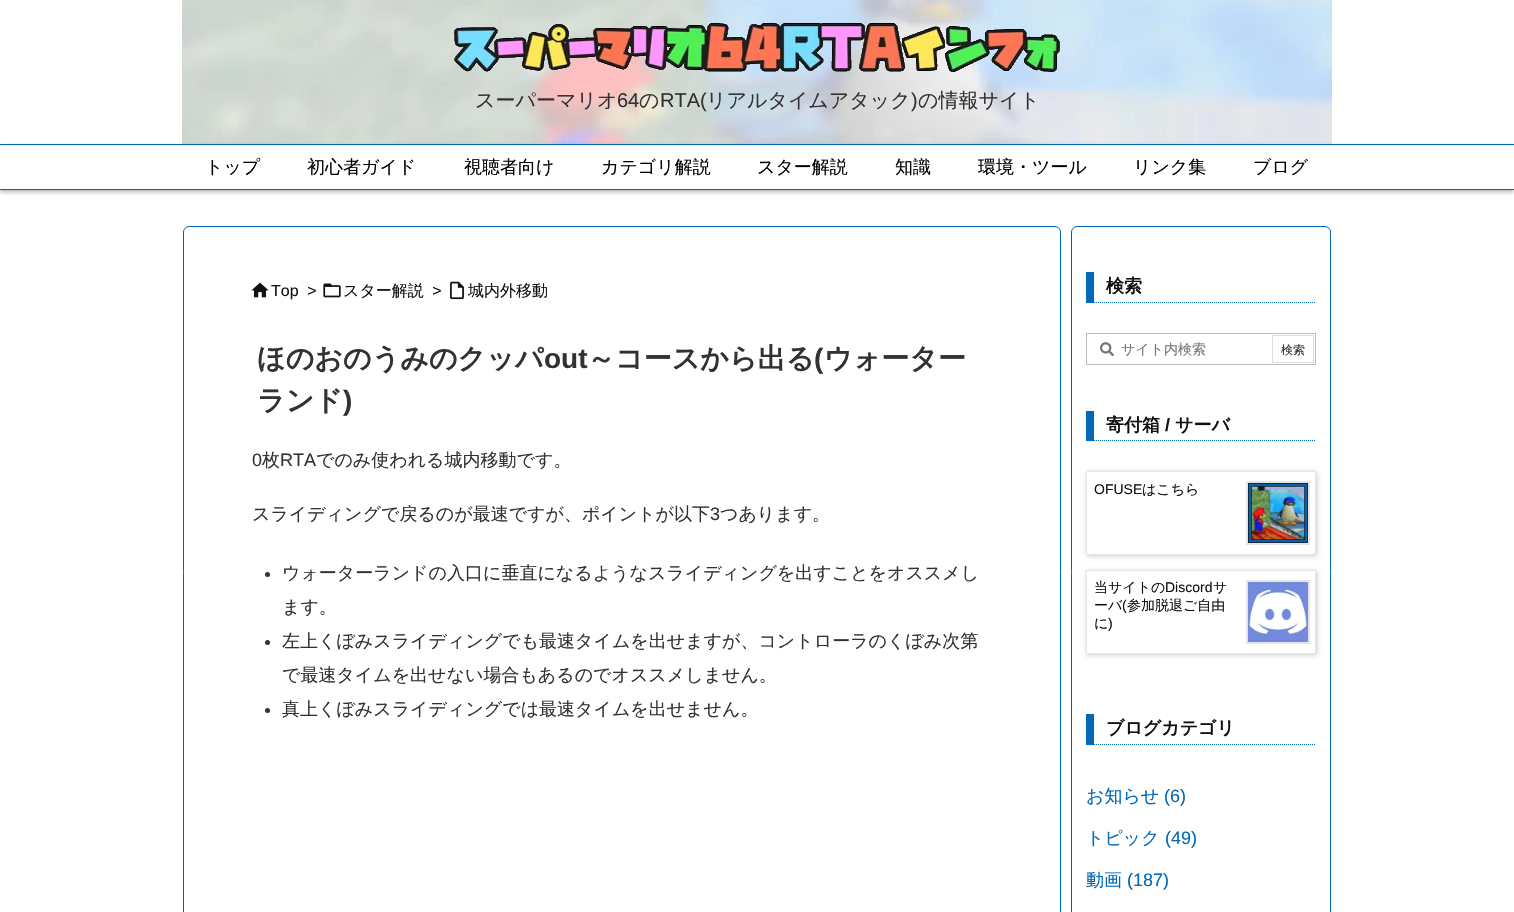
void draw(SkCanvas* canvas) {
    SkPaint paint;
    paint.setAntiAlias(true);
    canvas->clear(0xFFFFFFFF);
    canvas->drawImageRect(SkImages::DeferredFromEncodedData(SkData::MakeFromFileName("img1.png")), SkRect::MakeXYWH(182, 0, 1150, 144), SkSamplingOptions());
    canvas->drawImageRect(SkImages::DeferredFromEncodedData(SkData::MakeFromFileName("img2.png")), SkRect::MakeXYWH(454, 23, 606, 49), SkSamplingOptions());
    SkFont font1(fontMgr->matchFamilyStyle("WenQuanYi Zen Hei", SkFontStyle(500, SkFontStyle::kNormal_Width, SkFontStyle::kUpright_Slant)), 20);
    font1.setSubpixel(true);
    paint.setColor(0xFF323232);
    canvas->drawString("スーパーマリオ", 475, 107, font1, paint);
    SkFont font2(fontMgr->matchFamilyStyle("Liberation Sans", SkFontStyle::Normal()), 20);
    font2.setSubpixel(true);
    canvas->drawString("64", 617, 107, font2, paint);
    canvas->drawString("の", 639, 107, font1, paint);
    canvas->drawString("RTA(", 660, 107, font2, paint);
    canvas->drawString("リアルタイムアタック", 706, 107, font1, paint);
    canvas->drawString(")", 911, 107, font2, paint);
    canvas->drawString("の情報サイト", 918, 107, font1, paint);
    canvas->save();
    canvas->clipPath(SkPathBuilder(SkPathFillType::kEvenOdd).moveTo(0, 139).lineTo(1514, 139).lineTo(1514, 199).lineTo(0, 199).close().moveTo(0, 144).lineTo(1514, 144).lineTo(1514, 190).lineTo(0, 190).close().detach(), true);
    paint.setColor(0x4D000000);
    paint.setMaskFilter(SkMaskFilter::MakeBlur(kNormal_SkBlurStyle, 2));
    canvas->drawRect(SkRect::MakeXYWH(0, 146, 1514, 46), paint);
    paint.setMaskFilter(nullptr);
    canvas->restore();
    paint.setColor(0xFF0068B7);
    canvas->drawRect(SkRect::MakeXYWH(0, 144, 1514, 1), paint);
    canvas->drawRect(SkRect::MakeXYWH(0, 189, 1514, 1), paint);
    SkFont font3(fontMgr->matchFamilyStyle("WenQuanYi Zen Hei", SkFontStyle(500, SkFontStyle::kNormal_Width, SkFontStyle::kUpright_Slant)), 18);
    font3.setSubpixel(true);
    paint.setColor(0xFF000000);
    canvas->drawString("トップ", 205, 173, font3, paint);
    canvas->drawString("初心者ガイド", 307, 173, font3, paint);
    canvas->drawString("視聴者向け", 464, 173, font3, paint);
    canvas->drawString("カテゴリ解説", 601, 173, font3, paint);
    canvas->drawString("スター解説", 757, 173, font3, paint);
    canvas->drawString("知識", 895, 173, font3, paint);
    canvas->drawString("環境・ツール", 978, 173, font3, paint);
    canvas->drawString("リンク集", 1133, 173, font3, paint);
    canvas->drawString("ブログ", 1253, 173, font3, paint);
    paint.setStyle(SkPaint::kStroke_Style);
    paint.setStrokeWidth(1);
    paint.setColor(0xFF0068B7);
    canvas->drawRoundRect(SkRect::MakeXYWH(183.5f, 226.5f, 877, 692), 5.5f, 5.5f, paint);
    canvas->drawImageRect(SkImages::DeferredFromEncodedData(SkData::MakeFromFileName("img3.png")), SkRect::MakeXYWH(251, 282, 18, 16), SkSamplingOptions());
    SkFont font4(fontMgr->matchFamilyStyle("Liberation Sans", SkFontStyle::Normal()), 16);
    font4.setSubpixel(true);
    paint.setStyle(SkPaint::kFill_Style);
    paint.setColor(0xFF111111);
    canvas->drawString("Top", 271, 296, font4, paint);
    SkFont font5(fontMgr->matchFamilyStyle("Liberation Sans", SkFontStyle::Italic()), 16);
    font5.setSubpixel(true);
    canvas->drawString(">", 307, 296, font5, paint);
    canvas->drawImageRect(SkImages::DeferredFromEncodedData(SkData::MakeFromFileName("img4.png")), SkRect::MakeXYWH(323, 283, 18, 15), SkSamplingOptions());
    SkFont font6(fontMgr->matchFamilyStyle("WenQuanYi Zen Hei", SkFontStyle(500, SkFontStyle::kNormal_Width, SkFontStyle::kUpright_Slant)), 16);
    font6.setSubpixel(true);
    canvas->drawString("スター解説", 343, 296, font6, paint);
    canvas->drawString(">", 432, 296, font5, paint);
    canvas->drawImageRect(SkImages::DeferredFromEncodedData(SkData::MakeFromFileName("img5.png")), SkRect::MakeXYWH(450, 281, 14, 19), SkSamplingOptions());
    canvas->drawString("城内外移動", 468, 296, font6, paint);
    SkFont font7(fontMgr->matchFamilyStyle("WenQuanYi Zen Hei", SkFontStyle::Bold()), 28);
    font7.setSubpixel(true);
    paint.setColor(0xFF323232);
    canvas->drawString("ほのおのうみのクッパ", 257, 368, font7, paint);
    SkFont font8(fontMgr->matchFamilyStyle("Liberation Sans", SkFontStyle::Bold()), 28);
    font8.setSubpixel(true);
    canvas->drawString("out", 544, 368, font8, paint);
    canvas->drawString("～コースから出る", 587, 368, font7, paint);
    canvas->drawString("(", 814, 368, font8, paint);
    canvas->drawString("ウォーター", 824, 368, font7, paint);
    canvas->drawString("ランド", 257, 410, font7, paint);
    canvas->drawString(")", 343, 410, font8, paint);
    SkFont font9(fontMgr->matchFamilyStyle("Liberation Sans", SkFontStyle::Normal()), 18);
    font9.setSubpixel(true);
    canvas->drawString("0", 252, 466, font9, paint);
    canvas->drawString("枚", 262, 466, font3, paint);
    canvas->drawString("RTA", 280, 466, font9, paint);
    canvas->drawString("でのみ使われる城内移動です。", 316, 466, font3, paint);
    canvas->drawString("スライディングで戻るのが最速ですが、ポイントが以下", 252, 520, font3, paint);
    canvas->drawString("3", 710, 520, font9, paint);
    canvas->drawString("つあります。", 720, 520, font3, paint);
    canvas->drawCircle(267.5f, 574.5f, 2.5f, paint);
    canvas->drawString("ウォーターランドの入口に垂直になるようなスライディングを出すことをオススメし", 282, 579, font3, paint);
    canvas->drawString("ます。", 282, 613, font3, paint);
    canvas->drawCircle(267.5f, 642.5f, 2.5f, paint);
    canvas->drawString("左上くぼみスライディングでも最速タイムを出せますが、コントローラのくぼみ次第", 282, 647, font3, paint);
    canvas->drawString("で最速タイムを出せない場合もあるのでオススメしません。", 282, 681, font3, paint);
    canvas->drawCircle(267.5f, 710.5f, 2.5f, paint);
    canvas->drawString("真上くぼみスライディングでは最速タイムを出せません。", 282, 715, font3, paint);
    paint.setStyle(SkPaint::kStroke_Style);
    paint.setColor(0xFF0068B7);
    canvas->drawRoundRect(SkRect::MakeXYWH(1071.5f, 226.5f, 259, 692), 5.5f, 5.5f, paint);
    paint.setPathEffect(SkDashPathEffect::Make({{1, 1}}, 0));
    canvas->drawPath(SkPathBuilder().moveTo(1086, 302.5f).lineTo(1316, 302.5f).detach(), paint);
    paint.setPathEffect(nullptr);
    paint.setStyle(SkPaint::kFill_Style);
    canvas->drawRect(SkRect::MakeXYWH(1086, 272, 8, 31), paint);
    SkFont font10(fontMgr->matchFamilyStyle("WenQuanYi Zen Hei", SkFontStyle::Bold()), 18);
    font10.setSubpixel(true);
    paint.setColor(0xFF111111);
    canvas->drawString("検索", 1106, 292, font10, paint);
    paint.setStyle(SkPaint::kStroke_Style);
    paint.setColor(0xFFBBBBBB);
    canvas->drawRect(SkRect::MakeXYWH(1086.5f, 333.5f, 229, 31), paint);
    canvas->drawImageRect(SkImages::DeferredFromEncodedData(SkData::MakeFromFileName("img6.png")), SkRect::MakeXYWH(1100, 342, 14, 15), SkSamplingOptions());
    SkFont font11(fontMgr->matchFamilyStyle("WenQuanYi Zen Hei", SkFontStyle(500, SkFontStyle::kNormal_Width, SkFontStyle::kUpright_Slant)), 14);
    font11.setSubpixel(true);
    paint.setStyle(SkPaint::kFill_Style);
    paint.setColor(0xFF757575);
    canvas->drawString("サイト内検索", 1121, 354, font11, paint);
    paint.setStyle(SkPaint::kStroke_Style);
    paint.setColor(0xFFDDDDDD);
    canvas->drawRect(SkRect::MakeXYWH(1272.5f, 335.5f, 41, 27), paint);
    SkFont font12(fontMgr->matchFamilyStyle("WenQuanYi Zen Hei", SkFontStyle(500, SkFontStyle::kNormal_Width, SkFontStyle::kUpright_Slant)), 12);
    font12.setSubpixel(true);
    paint.setStyle(SkPaint::kFill_Style);
    paint.setColor(0xFF323232);
    canvas->drawString("検索", 1281, 354, font12, paint);
    paint.setStyle(SkPaint::kStroke_Style);
    paint.setColor(0xFF0068B7);
    paint.setPathEffect(SkDashPathEffect::Make({{1, 1}}, 0));
    canvas->drawPath(SkPathBuilder().moveTo(1086, 440.5f).lineTo(1316, 440.5f).detach(), paint);
    paint.setPathEffect(nullptr);
    paint.setStyle(SkPaint::kFill_Style);
    canvas->drawRect(SkRect::MakeXYWH(1086, 411, 8, 30), paint);
    paint.setColor(0xFF111111);
    canvas->drawString("寄付箱", 1106, 431, font10, paint);
    SkFont font13(fontMgr->matchFamilyStyle("Liberation Sans", SkFontStyle::Bold()), 18);
    font13.setSubpixel(true);
    canvas->drawString("/", 1165, 431, font13, paint);
    canvas->drawString("サーバ", 1175, 431, font10, paint);
    canvas->save();
    canvas->clipPath(SkPathBuilder(SkPathFillType::kEvenOdd).moveTo(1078, 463).lineTo(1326, 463).lineTo(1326, 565).lineTo(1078, 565).close().moveTo(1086, 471).lineTo(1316, 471).lineTo(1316, 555).lineTo(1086, 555).close().detach(), true);
    paint.setColor(0x33000000);
    paint.setMaskFilter(SkMaskFilter::MakeBlur(kNormal_SkBlurStyle, 2.5f));
    canvas->drawRect(SkRect::MakeXYWH(1087, 472, 230, 84), paint);
    paint.setMaskFilter(nullptr);
    canvas->restore();
    paint.setStyle(SkPaint::kStroke_Style);
    paint.setColor(0xFFE5E5E5);
    canvas->drawRect(SkRect::MakeXYWH(1086.5f, 471.5f, 229, 83), paint);
    SkFont font14(fontMgr->matchFamilyStyle("Liberation Sans", SkFontStyle::Normal()), 14);
    font14.setSubpixel(true);
    paint.setStyle(SkPaint::kFill_Style);
    paint.setColor(0xFF111111);
    canvas->drawString("OFUSE", 1094, 494, font14, paint);
    canvas->drawString("はこちら", 1142, 494, font11, paint);
    paint.setStyle(SkPaint::kStroke_Style);
    paint.setStrokeWidth(2);
    paint.setColor(0xFFE5E5E5);
    canvas->drawRect(SkRect::MakeXYWH(1247, 482, 62, 62), paint);
    canvas->drawImageRect(SkImages::DeferredFromEncodedData(SkData::MakeFromFileName("img7.png")), SkRect::MakeXYWH(1248, 483, 60, 60), SkSamplingOptions());
    canvas->save();
    canvas->clipPath(SkPathBuilder(SkPathFillType::kEvenOdd).moveTo(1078, 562).lineTo(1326, 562).lineTo(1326, 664).lineTo(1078, 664).close().moveTo(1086, 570).lineTo(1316, 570).lineTo(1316, 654).lineTo(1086, 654).close().detach(), true);
    paint.setStyle(SkPaint::kFill_Style);
    paint.setColor(0x33000000);
    paint.setMaskFilter(SkMaskFilter::MakeBlur(kNormal_SkBlurStyle, 2.5f));
    canvas->drawRect(SkRect::MakeXYWH(1087, 571, 230, 84), paint);
    paint.setMaskFilter(nullptr);
    canvas->restore();
    paint.setStyle(SkPaint::kStroke_Style);
    paint.setStrokeWidth(1);
    paint.setColor(0xFFE5E5E5);
    canvas->drawRect(SkRect::MakeXYWH(1086.5f, 570.5f, 229, 83), paint);
    paint.setStyle(SkPaint::kFill_Style);
    paint.setColor(0xFF111111);
    canvas->drawString("当サイトの", 1094, 592, font11, paint);
    canvas->drawString("Discord", 1165, 592, font14, paint);
    canvas->drawString("サ", 1213, 592, font11, paint);
    canvas->drawString("ーバ", 1094, 610, font11, paint);
    canvas->drawString("(", 1122, 610, font14, paint);
    canvas->drawString("参加脱退ご自由", 1127, 610, font11, paint);
    canvas->drawString("に", 1094, 628, font11, paint);
    canvas->drawString(")", 1108, 628, font14, paint);
    paint.setStyle(SkPaint::kStroke_Style);
    paint.setStrokeWidth(2);
    paint.setColor(0xFFE5E5E5);
    canvas->drawRect(SkRect::MakeXYWH(1247, 581, 62, 62), paint);
    canvas->drawImageRect(SkImages::DeferredFromEncodedData(SkData::MakeFromFileName("img8.png")), SkRect::MakeXYWH(1248, 582, 60, 60), SkSamplingOptions());
    paint.setStrokeWidth(1);
    paint.setColor(0xFF0068B7);
    paint.setPathEffect(SkDashPathEffect::Make({{1, 1}}, 0));
    canvas->drawPath(SkPathBuilder().moveTo(1086, 744.5f).lineTo(1316, 744.5f).detach(), paint);
    paint.setPathEffect(nullptr);
    paint.setStyle(SkPaint::kFill_Style);
    canvas->drawRect(SkRect::MakeXYWH(1086, 714, 8, 31), paint);
    paint.setColor(0xFF111111);
    canvas->drawString("ブログカテゴリ", 1106, 734, font10, paint);
    paint.setColor(0xFF0068B7);
    canvas->drawString("お知らせ", 1086, 802, font3, paint);
    canvas->drawString("(6)", 1164, 802, font9, paint);
    canvas->drawString("トピック", 1086, 844, font3, paint);
    canvas->drawString("(49)", 1165, 844, font9, paint);
    canvas->drawString("動画", 1086, 886, font3, paint);
    canvas->drawString("(187)", 1127, 886, font9, paint);
}
